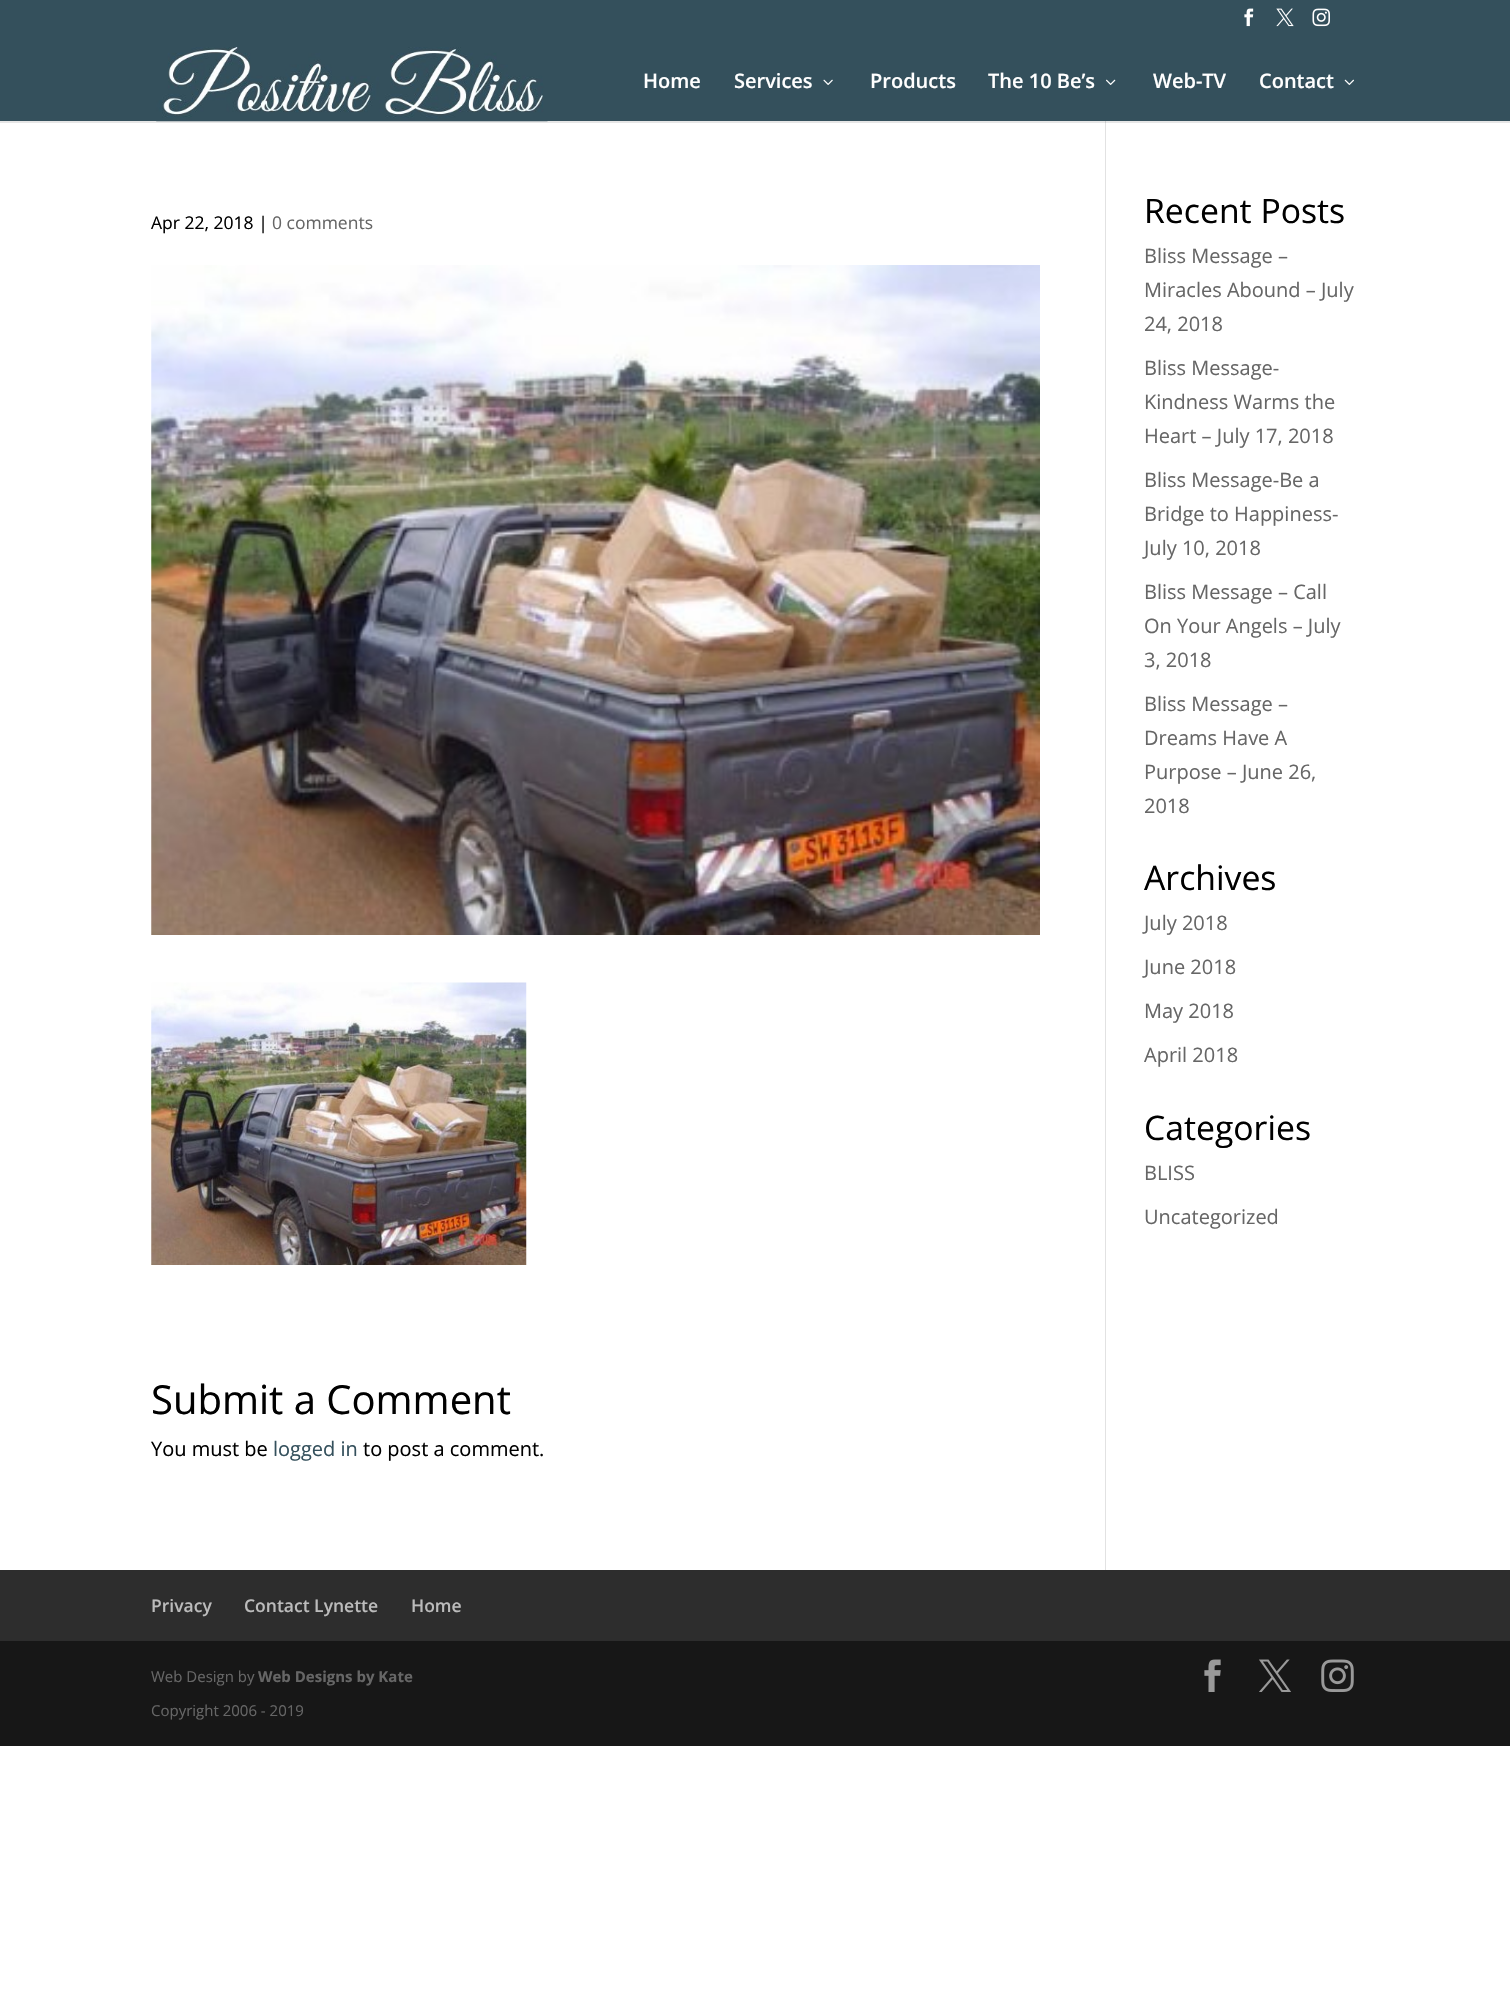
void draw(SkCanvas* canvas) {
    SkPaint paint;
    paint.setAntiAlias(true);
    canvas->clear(0xFFFFFFFF);
    paint.setColor(0xFFE6E6E6);
    canvas->drawRect(SkRect::MakeXYWH(0, 121, 1510, 2), paint);
    paint.setColor(0xFFE2E2E2);
    canvas->drawRect(SkRect::MakeXYWH(1105, 120, 1, 1450), paint);
    paint.setColor(0xFF34505C);
    canvas->drawRect(SkRect::MakeXYWH(0, 0, 1510, 121), paint);
    canvas->drawImageRect(SkImages::DeferredFromEncodedData(SkData::MakeFromFileName("img1.png")), SkRect::MakeXYWH(1244, 8, 10, 19), SkSamplingOptions());
    canvas->drawImageRect(SkImages::DeferredFromEncodedData(SkData::MakeFromFileName("img2.png")), SkRect::MakeXYWH(1276, 8, 18, 19), SkSamplingOptions());
    canvas->drawImageRect(SkImages::DeferredFromEncodedData(SkData::MakeFromFileName("img3.png")), SkRect::MakeXYWH(1312, 8, 18, 19), SkSamplingOptions());
    canvas->drawImageRect(SkImages::DeferredFromEncodedData(SkData::MakeFromFileName("img4.png")), SkRect::MakeXYWH(156, 47, 392, 75), SkSamplingOptions());
    SkFont font1(fontMgr->matchFamilyStyle("Open Sans", SkFontStyle(600, SkFontStyle::kNormal_Width, SkFontStyle::kUpright_Slant)), 20);
    font1.setSubpixel(true);
    paint.setColor(0xFFFFFFFF);
    canvas->drawString("Home", 643, 88, font1, paint);
    canvas->drawString("Services", 734, 88, font1, paint);
    canvas->drawImageRect(SkImages::DeferredFromEncodedData(SkData::MakeFromFileName("img5.png")), SkRect::MakeXYWH(823, 79, 10, 6), SkSamplingOptions());
    canvas->drawString("Products", 870, 88, font1, paint);
    canvas->drawString("The 10 Be’s", 988, 88, font1, paint);
    canvas->drawImageRect(SkImages::DeferredFromEncodedData(SkData::MakeFromFileName("img6.png")), SkRect::MakeXYWH(1106, 79, 10, 6), SkSamplingOptions());
    canvas->drawString("Web-TV", 1153, 88, font1, paint);
    canvas->drawString("Contact", 1259, 88, font1, paint);
    canvas->drawImageRect(SkImages::DeferredFromEncodedData(SkData::MakeFromFileName("img7.png")), SkRect::MakeXYWH(1344, 79, 10, 6), SkSamplingOptions());
    paint.setColor(0xFFCBCBCB);
    canvas->drawRect(SkRect::MakeXYWH(1105, 121, 1, 2), paint);
    SkFont font2(fontMgr->matchFamilyStyle("Open Sans", SkFontStyle::Normal()), 17.5f);
    font2.setSubpixel(true);
    paint.setColor(0xFF000000);
    canvas->drawString("Apr 22, 2018 |", 151, 229, font2, paint);
    paint.setColor(0xFF666666);
    canvas->drawString("0 comments", 272, 229, font2, paint);
    canvas->drawImageRect(SkImages::DeferredFromEncodedData(SkData::MakeFromFileName("img8.png")), SkRect::MakeXYWH(151, 265, 889, 670), SkSamplingOptions());
    canvas->drawImageRect(SkImages::DeferredFromEncodedData(SkData::MakeFromFileName("img9.png")), SkRect::MakeXYWH(151, 982, 376, 283), SkSamplingOptions());
    SkFont font3(fontMgr->matchFamilyStyle("Open Sans", SkFontStyle::Normal()), 40);
    font3.setSubpixel(true);
    paint.setColor(0xFF000000);
    canvas->drawString("Submit a Comment", 151, 1414, font3, paint);
    SkFont font4(fontMgr->matchFamilyStyle("Open Sans", SkFontStyle::Normal()), 20);
    font4.setSubpixel(true);
    canvas->drawString("You must be", 151, 1456, font4, paint);
    paint.setColor(0xFF34505C);
    canvas->drawString("logged in", 273, 1456, font4, paint);
    paint.setColor(0xFF000000);
    canvas->drawString("to post a comment.", 363, 1456, font4, paint);
    SkFont font5(fontMgr->matchFamilyStyle("Open Sans", SkFontStyle::Normal()), 33.75f);
    font5.setSubpixel(true);
    canvas->drawString("Recent Posts", 1144, 223, font5, paint);
    paint.setColor(0xFF666666);
    canvas->drawString("Bliss Message –", 1144, 263, font4, paint);
    canvas->drawString("Miracles Abound – July", 1144, 297, font4, paint);
    canvas->drawString("24, 2018", 1144, 331, font4, paint);
    canvas->drawString("Bliss Message-", 1144, 375, font4, paint);
    canvas->drawString("Kindness Warms the", 1144, 409, font4, paint);
    canvas->drawString("Heart – July 17, 2018", 1144, 443, font4, paint);
    canvas->drawString("Bliss Message-Be a", 1144, 487, font4, paint);
    canvas->drawString("Bridge to Happiness-", 1144, 521, font4, paint);
    canvas->drawString("July 10, 2018", 1144, 555, font4, paint);
    canvas->drawString("Bliss Message – Call", 1144, 599, font4, paint);
    canvas->drawString("On Your Angels – July", 1144, 633, font4, paint);
    canvas->drawString("3, 2018", 1144, 667, font4, paint);
    canvas->drawString("Bliss Message –", 1144, 711, font4, paint);
    canvas->drawString("Dreams Have A", 1144, 745, font4, paint);
    canvas->drawString("Purpose – June 26,", 1144, 779, font4, paint);
    canvas->drawString("2018", 1144, 813, font4, paint);
    paint.setColor(0xFF000000);
    canvas->drawString("Archives", 1144, 890, font5, paint);
    paint.setColor(0xFF666666);
    canvas->drawString("July 2018", 1144, 930, font4, paint);
    canvas->drawString("June 2018", 1144, 974, font4, paint);
    canvas->drawString("May 2018", 1144, 1018, font4, paint);
    canvas->drawString("April 2018", 1144, 1062, font4, paint);
    paint.setColor(0xFF000000);
    canvas->drawString("Categories", 1144, 1140, font5, paint);
    paint.setColor(0xFF666666);
    canvas->drawString("BLISS", 1144, 1180, font4, paint);
    canvas->drawString("Uncategorized", 1144, 1224, font4, paint);
    paint.setColor(0xFF2D2D2D);
    canvas->drawRect(SkRect::MakeXYWH(0, 1570, 1510, 71), paint);
    SkFont font6(fontMgr->matchFamilyStyle("Open Sans", SkFontStyle(600, SkFontStyle::kNormal_Width, SkFontStyle::kUpright_Slant)), 17.5f);
    font6.setSubpixel(true);
    paint.setColor(0xFFBBBBBB);
    canvas->drawString("Privacy", 151, 1612, font6, paint);
    canvas->drawString("Contact Lynette", 244, 1612, font6, paint);
    canvas->drawString("Home", 411, 1612, font6, paint);
    paint.setColor(0xFF171717);
    canvas->drawRect(SkRect::MakeXYWH(0, 1641, 1510, 105), paint);
    SkFont font7(fontMgr->matchFamilyStyle("Open Sans", SkFontStyle::Normal()), 15);
    font7.setSubpixel(true);
    paint.setColor(0xFF666666);
    canvas->drawString("Web Design by", 151, 1682, font7, paint);
    SkFont font8(fontMgr->matchFamilyStyle("Open Sans", SkFontStyle::Bold()), 15);
    font8.setSubpixel(true);
    canvas->drawString("Web Designs by Kate", 258, 1682, font8, paint);
    canvas->drawString("Copyright 2006 - 2019", 151, 1716, font7, paint);
    canvas->drawImageRect(SkImages::DeferredFromEncodedData(SkData::MakeFromFileName("img10.png")), SkRect::MakeXYWH(1204, 1659, 17, 33), SkSamplingOptions());
    canvas->drawImageRect(SkImages::DeferredFromEncodedData(SkData::MakeFromFileName("img11.png")), SkRect::MakeXYWH(1259, 1659, 32, 33), SkSamplingOptions());
    canvas->drawImageRect(SkImages::DeferredFromEncodedData(SkData::MakeFromFileName("img12.png")), SkRect::MakeXYWH(1321, 1659, 33, 33), SkSamplingOptions());
}
